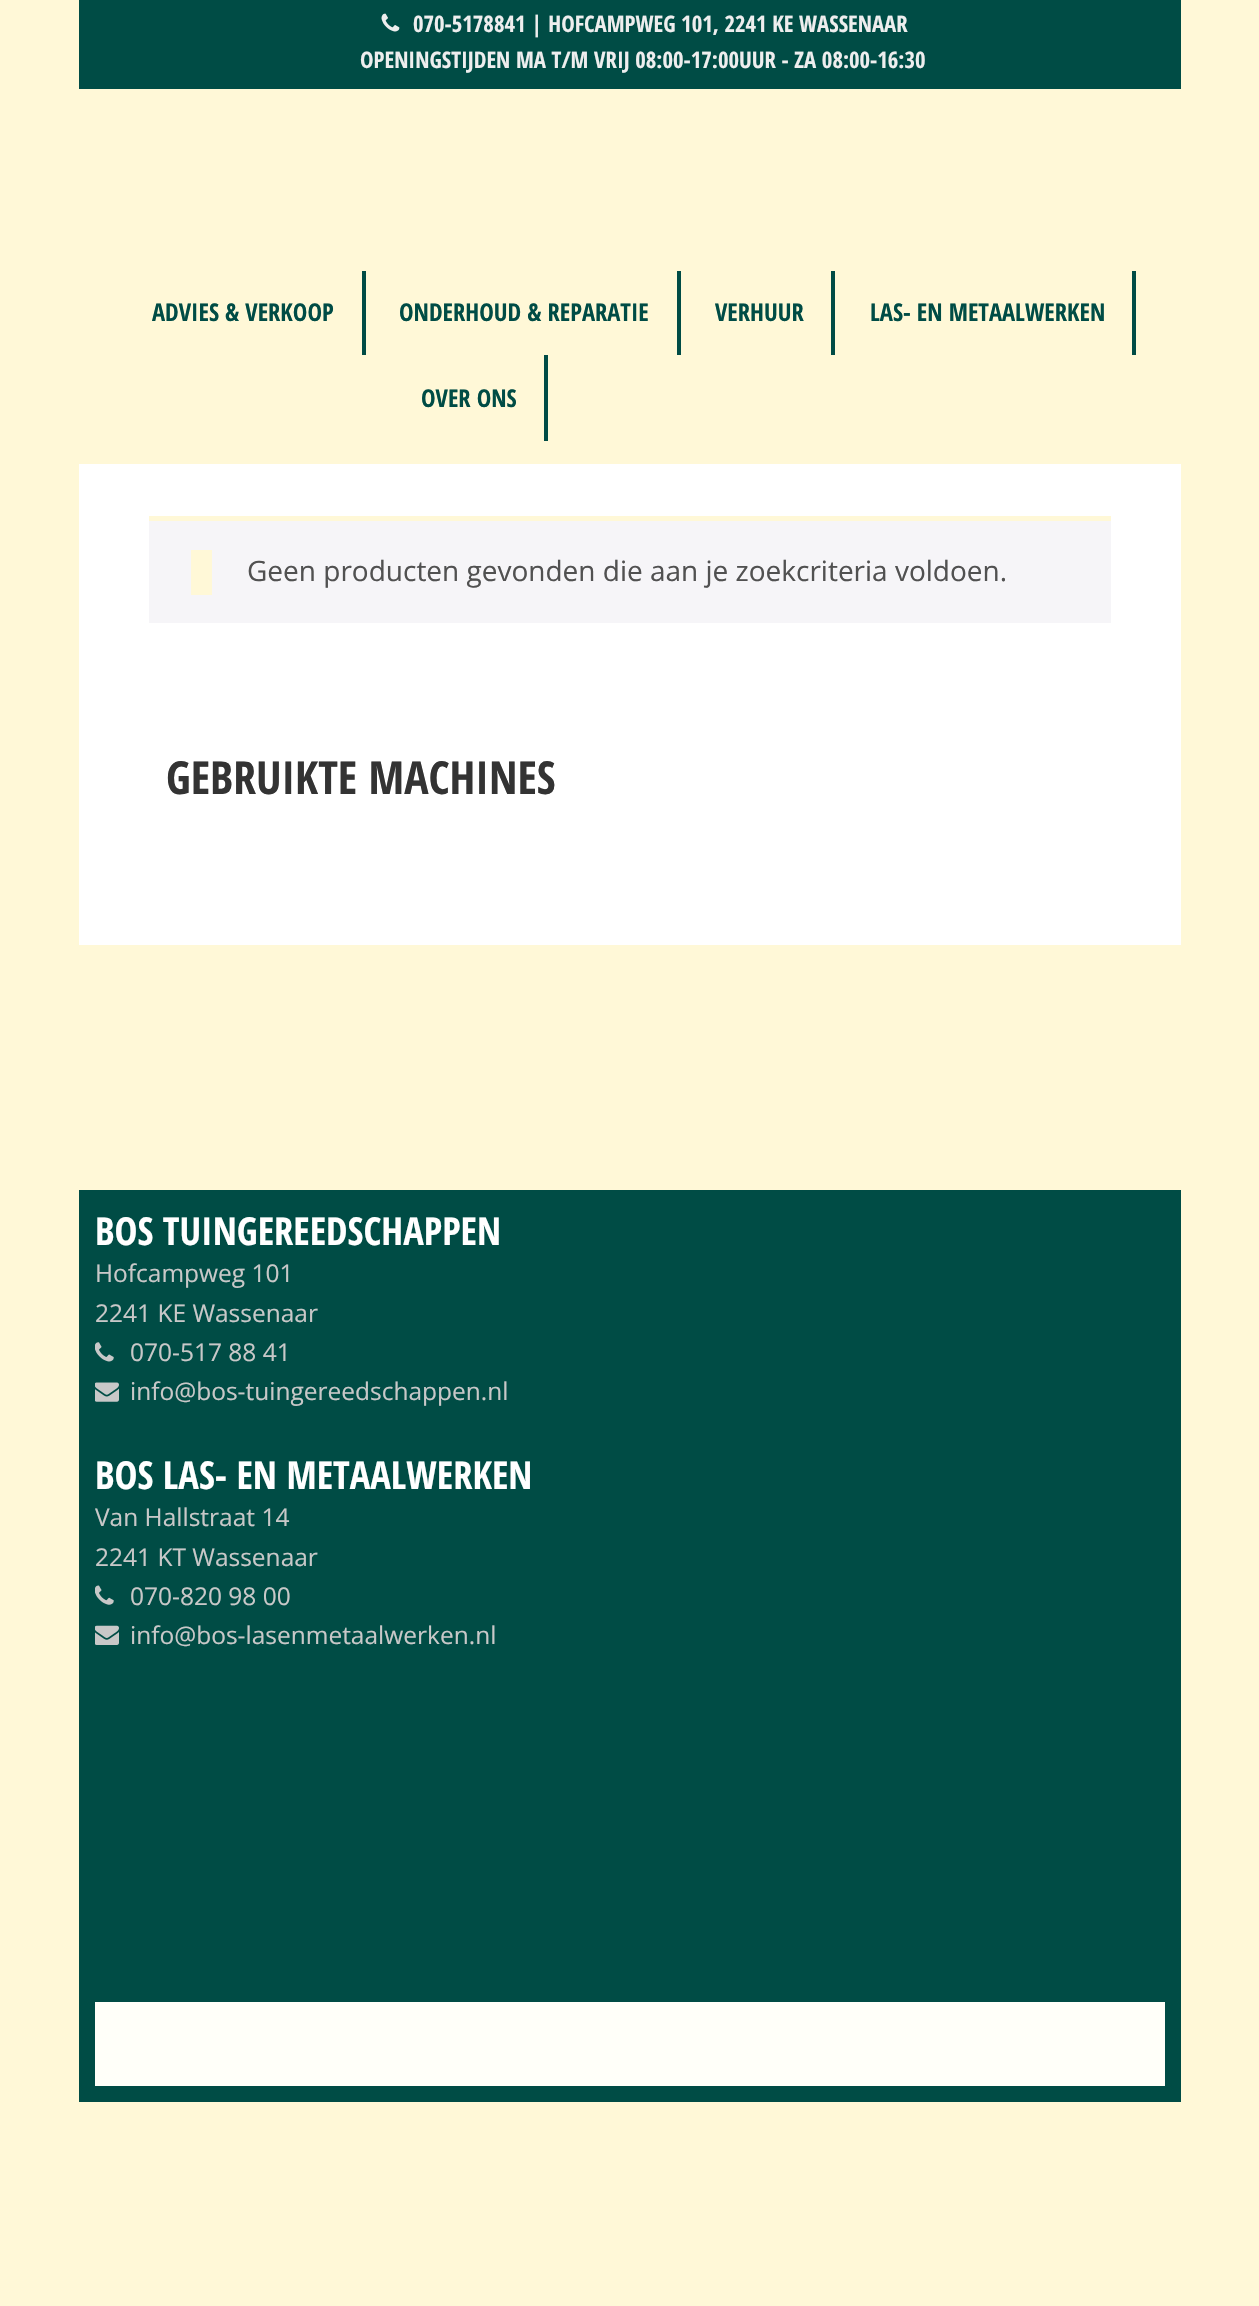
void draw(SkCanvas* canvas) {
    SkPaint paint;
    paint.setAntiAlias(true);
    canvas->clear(0xFFFFF8D7);
    paint.setColor(0xFF004C45);
    canvas->drawRect(SkRect::MakeXYWH(79, 0, 1102, 89), paint);
    canvas->drawImageRect(SkImages::DeferredFromEncodedData(SkData::MakeFromFileName("img1.png")), SkRect::MakeXYWH(381, 13, 19, 19), SkSamplingOptions());
    SkFont font1(fontMgr->matchFamilyStyle("Open Sans Condensed", SkFontStyle::Bold()), 22.75f);
    font1.setSubpixel(true);
    paint.setColor(0xFFEEEEEE);
    canvas->drawString("070-5178841 | HOFCAMPWEG 101, 2241 KE WASSENAAR", 413, 32, font1, paint);
    canvas->drawString("OPENINGSTIJDEN MA T/M VRIJ 08:00-17:00UUR - ZA 08:00-16:30", 360, 68, font1, paint);
    paint.setColor(0xFF004C45);
    canvas->drawRect(SkRect::MakeXYWH(362, 271, 4, 84), paint);
    SkFont font2(fontMgr->matchFamilyStyle("Open Sans Condensed", SkFontStyle::Bold()), 24.5f);
    font2.setSubpixel(true);
    canvas->drawString("ADVIES & VERKOOP", 152, 321, font2, paint);
    canvas->drawRect(SkRect::MakeXYWH(677, 271, 4, 84), paint);
    canvas->drawString("ONDERHOUD & REPARATIE", 399, 321, font2, paint);
    canvas->drawRect(SkRect::MakeXYWH(831, 271, 4, 84), paint);
    canvas->drawString("VERHUUR", 715, 321, font2, paint);
    canvas->drawRect(SkRect::MakeXYWH(1132, 271, 4, 84), paint);
    canvas->drawString("LAS- EN METAALWERKEN", 870, 321, font2, paint);
    canvas->drawRect(SkRect::MakeXYWH(544, 355, 4, 86), paint);
    canvas->drawString("OVER ONS", 421, 407, font2, paint);
    paint.setColor(0xFFFFFFFF);
    canvas->drawRect(SkRect::MakeXYWH(79, 464, 1102, 481), paint);
    paint.setColor(0xFFF6F5F8);
    canvas->drawRect(SkRect::MakeXYWH(149, 521, 962, 102), paint);
    paint.setColor(0xFFFFF8D7);
    canvas->drawRect(SkRect::MakeXYWH(149, 516, 962, 5), paint);
    canvas->drawRect(SkRect::MakeXYWH(191, 550, 21, 45), paint);
    SkFont font3(fontMgr->matchFamilyStyle("Open Sans", SkFontStyle::Normal()), 28);
    font3.setSubpixel(true);
    paint.setColor(0xFF515151);
    canvas->drawString("Geen producten gevonden die aan je zoekcriteria voldoen.", 247, 581, font3, paint);
    SkFont font4(fontMgr->matchFamilyStyle("Open Sans Condensed", SkFontStyle::Bold()), 45.5f);
    font4.setSubpixel(true);
    paint.setColor(0xFF333333);
    canvas->drawString("GEBRUIKTE MACHINES", 166, 794, font4, paint);
    paint.setColor(0xFFFFFFF9);
    canvas->drawRect(SkRect::MakeXYWH(95, 2002, 1070, 84), paint);
    paint.setStyle(SkPaint::kStroke_Style);
    paint.setStrokeWidth(16);
    paint.setColor(0xFF004C45);
    canvas->drawRect(SkRect::MakeXYWH(87, 1198, 1086, 896), paint);
    paint.setStyle(SkPaint::kFill_Style);
    canvas->drawRect(SkRect::MakeXYWH(95, 1206, 1070, 796), paint);
    SkFont font5(fontMgr->matchFamilyStyle("Open Sans Condensed", SkFontStyle::Bold()), 38.5f);
    font5.setSubpixel(true);
    paint.setColor(0xFFFFFFFF);
    canvas->drawString("BOS TUINGEREEDSCHAPPEN", 95, 1245, font5, paint);
    SkFont font6(fontMgr->matchFamilyStyle("Open Sans", SkFontStyle::Normal()), 24.5f);
    font6.setSubpixel(true);
    paint.setColor(0xFFC8C8C8);
    canvas->drawString("Hofcampweg 101", 95, 1282, font6, paint);
    canvas->drawString("2241 KE Wassenaar", 95, 1322, font6, paint);
    canvas->drawImageRect(SkImages::DeferredFromEncodedData(SkData::MakeFromFileName("img2.png")), SkRect::MakeXYWH(95, 1342, 19, 20), SkSamplingOptions());
    canvas->drawString("070-517 88 41", 130, 1361, font6, paint);
    canvas->drawImageRect(SkImages::DeferredFromEncodedData(SkData::MakeFromFileName("img3.png")), SkRect::MakeXYWH(95, 1382, 24, 20), SkSamplingOptions());
    canvas->drawString("info@bos-tuingereedschappen.nl", 130, 1400, font6, paint);
    paint.setColor(0xFFFFFFFF);
    canvas->drawString("BOS LAS- EN METAALWERKEN", 95, 1489, font5, paint);
    paint.setColor(0xFFC8C8C8);
    canvas->drawString("Van Hallstraat 14", 95, 1526, font6, paint);
    canvas->drawString("2241 KT Wassenaar", 95, 1566, font6, paint);
    canvas->drawImageRect(SkImages::DeferredFromEncodedData(SkData::MakeFromFileName("img4.png")), SkRect::MakeXYWH(95, 1585, 19, 20), SkSamplingOptions());
    canvas->drawString("070-820 98 00", 130, 1605, font6, paint);
    canvas->drawImageRect(SkImages::DeferredFromEncodedData(SkData::MakeFromFileName("img5.png")), SkRect::MakeXYWH(95, 1625, 24, 20), SkSamplingOptions());
    canvas->drawString("info@bos-lasenmetaalwerken.nl", 130, 1644, font6, paint);
}
